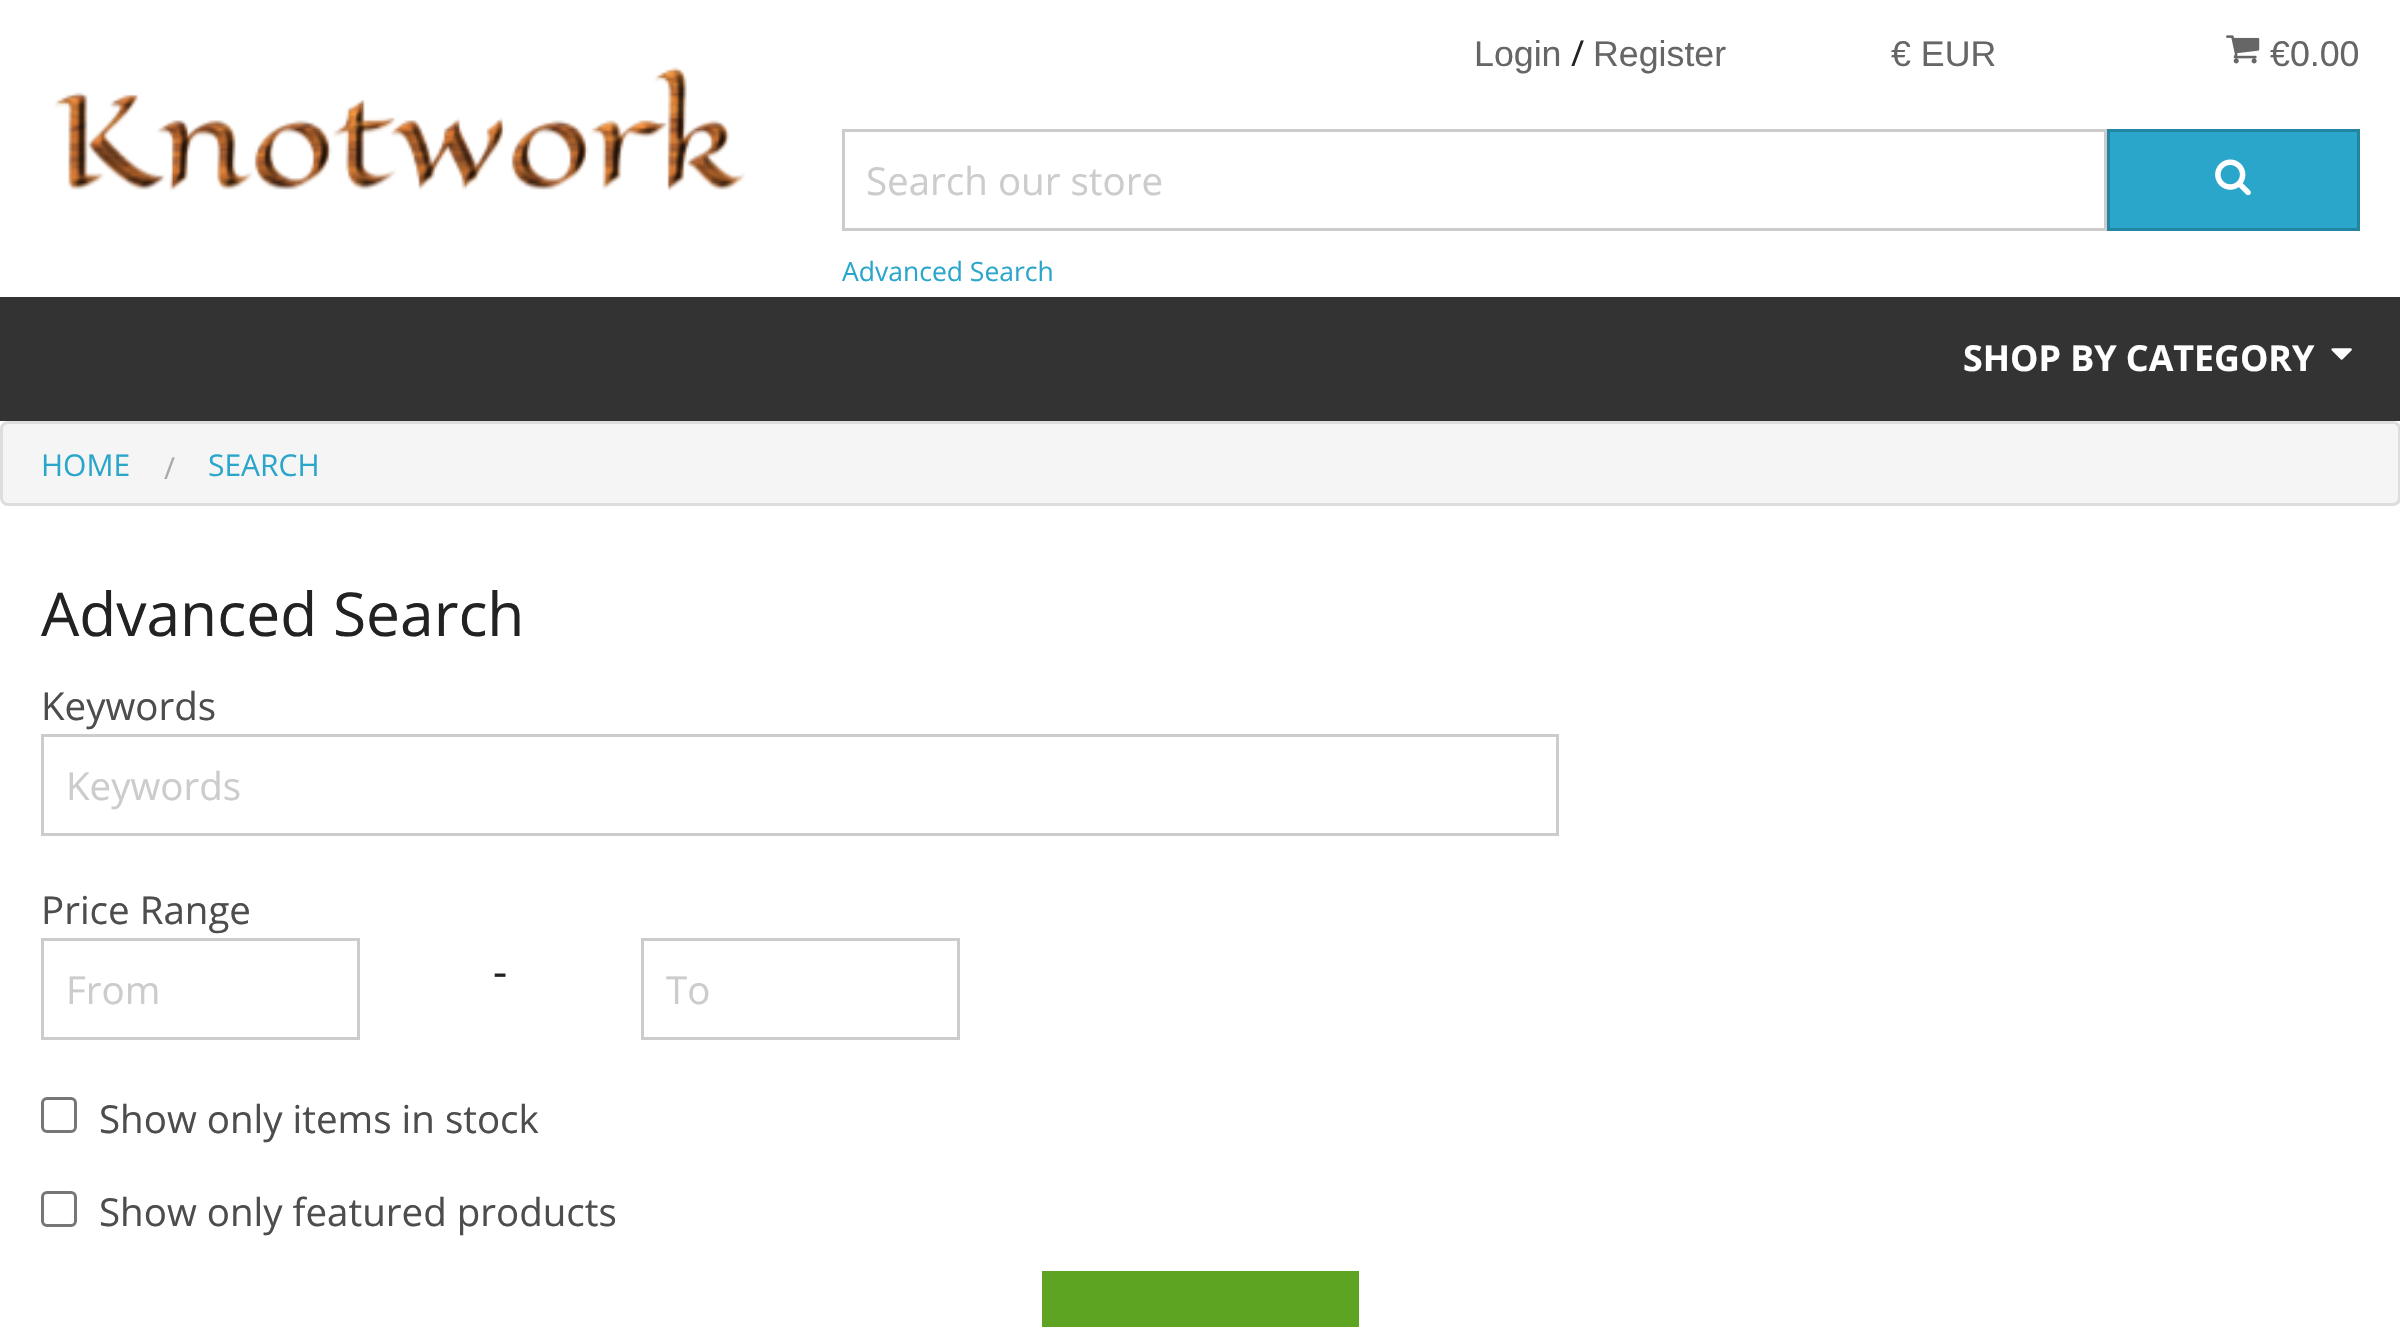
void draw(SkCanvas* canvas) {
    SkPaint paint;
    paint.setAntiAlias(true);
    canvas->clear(0xFFFFFFFF);
    canvas->drawImageRect(SkImages::DeferredFromEncodedData(SkData::MakeFromFileName("img1.png")), SkRect::MakeXYWH(54, 67, 691, 125), SkSamplingOptions());
    SkFont font1(fontMgr->matchFamilyStyle("Liberation Sans", SkFontStyle::Normal()), 35.75f);
    font1.setSubpixel(true);
    paint.setColor(0xFF666666);
    canvas->drawString("Login", 1474, 66, font1, paint);
    SkFont font2(fontMgr->matchFamilyStyle("Open Sans", SkFontStyle::Normal()), 35.75f);
    font2.setSubpixel(true);
    paint.setColor(0xFF222222);
    canvas->drawString("/", 1571, 66, font2, paint);
    paint.setColor(0xFF666666);
    canvas->drawString("Register", 1593, 66, font1, paint);
    canvas->drawString("€ EUR", 1891, 66, font1, paint);
    canvas->drawImageRect(SkImages::DeferredFromEncodedData(SkData::MakeFromFileName("img2.png")), SkRect::MakeXYWH(2226, 35, 34, 29), SkSamplingOptions());
    canvas->drawString("€0.00", 2270, 66, font1, paint);
    paint.setStyle(SkPaint::kStroke_Style);
    paint.setStrokeWidth(3);
    paint.setColor(0xFFCCCCCC);
    canvas->drawRect(SkRect::MakeXYWH(843.5f, 130.5f, 1262, 99), paint);
    SkFont font3(fontMgr->matchFamilyStyle("Open Sans", SkFontStyle::Normal()), 38.5f);
    font3.setSubpixel(true);
    paint.setStyle(SkPaint::kFill_Style);
    canvas->drawString("Search our store", 866, 195, font3, paint);
    SkFont font4(fontMgr->matchFamilyStyle("Open Sans", SkFontStyle::Normal()), 26.5f);
    font4.setSubpixel(true);
    paint.setColor(0xFF2BA6CB);
    canvas->drawString("Advanced Search", 842, 281, font4, paint);
    canvas->drawRect(SkRect::MakeXYWH(2108.5f, 130.5f, 250, 99), paint);
    paint.setStyle(SkPaint::kStroke_Style);
    paint.setColor(0xFF2285A2);
    canvas->drawRect(SkRect::MakeXYWH(2108.5f, 130.5f, 250, 99), paint);
    canvas->drawImageRect(SkImages::DeferredFromEncodedData(SkData::MakeFromFileName("img3.png")), SkRect::MakeXYWH(2215, 159, 36, 36), SkSamplingOptions());
    paint.setStyle(SkPaint::kFill_Style);
    paint.setColor(0xFF333333);
    canvas->drawRect(SkRect::MakeXYWH(0, 297, 2400, 124), paint);
    SkFont font5(fontMgr->matchFamilyStyle("Open Sans", SkFontStyle::Bold()), 35.75f);
    font5.setSubpixel(true);
    paint.setColor(0xFFFFFFFF);
    canvas->drawString("SHOP BY CATEGORY", 1963, 371, font5, paint);
    canvas->drawImageRect(SkImages::DeferredFromEncodedData(SkData::MakeFromFileName("img4.png")), SkRect::MakeXYWH(2331, 348, 21, 12), SkSamplingOptions());
    paint.setColor(0xFFF5F5F5);
    canvas->drawRoundRect(SkRect::MakeXYWH(1.5f, 422.5f, 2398, 82), 6.5f, 6.5f, paint);
    paint.setStyle(SkPaint::kStroke_Style);
    paint.setColor(0xFFDDDDDD);
    canvas->drawRoundRect(SkRect::MakeXYWH(1.5f, 422.5f, 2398, 82), 6.5f, 6.5f, paint);
    SkFont font6(fontMgr->matchFamilyStyle("Open Sans", SkFontStyle::Normal()), 30);
    font6.setSubpixel(true);
    paint.setStyle(SkPaint::kFill_Style);
    paint.setColor(0xFF2BA6CB);
    canvas->drawString("HOME", 41, 476, font6, paint);
    paint.setColor(0xFFAAAAAA);
    canvas->drawString("/", 164, 479, font6, paint);
    paint.setColor(0xFF2BA6CB);
    canvas->drawString("SEARCH", 208, 476, font6, paint);
    SkFont font7(fontMgr->matchFamilyStyle("Open Sans", SkFontStyle::Normal()), 60.5f);
    font7.setSubpixel(true);
    paint.setColor(0xFF222222);
    canvas->drawString("Advanced Search", 41, 636, font7, paint);
    paint.setColor(0xFF4D4D4D);
    canvas->drawString("Keywords", 41, 720, font3, paint);
    paint.setStyle(SkPaint::kStroke_Style);
    paint.setColor(0xFFCCCCCC);
    canvas->drawRect(SkRect::MakeXYWH(42.5f, 735.5f, 1515, 99), paint);
    paint.setStyle(SkPaint::kFill_Style);
    canvas->drawString("Keywords", 66, 800, font3, paint);
    paint.setColor(0xFF4D4D4D);
    canvas->drawString("Price Range", 41, 924, font3, paint);
    SkFont font8(fontMgr->matchFamilyStyle("Open Sans", SkFontStyle::Normal()), 44);
    font8.setSubpixel(true);
    paint.setColor(0xFF222222);
    canvas->drawString("-", 493, 987, font8, paint);
    paint.setStyle(SkPaint::kStroke_Style);
    paint.setColor(0xFFCCCCCC);
    canvas->drawRect(SkRect::MakeXYWH(42.5f, 939.5f, 316, 99), paint);
    paint.setStyle(SkPaint::kFill_Style);
    canvas->drawString("From", 66, 1004, font3, paint);
    paint.setStyle(SkPaint::kStroke_Style);
    canvas->drawRect(SkRect::MakeXYWH(642.5f, 939.5f, 316, 99), paint);
    paint.setStyle(SkPaint::kFill_Style);
    canvas->drawString("To", 666, 1004, font3, paint);
    paint.setStyle(SkPaint::kStroke_Style);
    paint.setColor(0xFF767676);
    canvas->drawRoundRect(SkRect::MakeXYWH(42.5f, 1098.5f, 33, 33), 4.5f, 4.5f, paint);
    paint.setStyle(SkPaint::kFill_Style);
    paint.setColor(0xFF4D4D4D);
    canvas->drawString("Show only items in stock", 99, 1133, font3, paint);
    paint.setStyle(SkPaint::kStroke_Style);
    paint.setColor(0xFF767676);
    canvas->drawRoundRect(SkRect::MakeXYWH(42.5f, 1192.5f, 33, 33), 4.5f, 4.5f, paint);
    paint.setStyle(SkPaint::kFill_Style);
    paint.setColor(0xFF4D4D4D);
    canvas->drawString("Show only featured products", 99, 1226, font3, paint);
    paint.setColor(0xFF5DA423);
    canvas->drawRect(SkRect::MakeXYWH(1042, 1271, 317, 56), paint);
}
